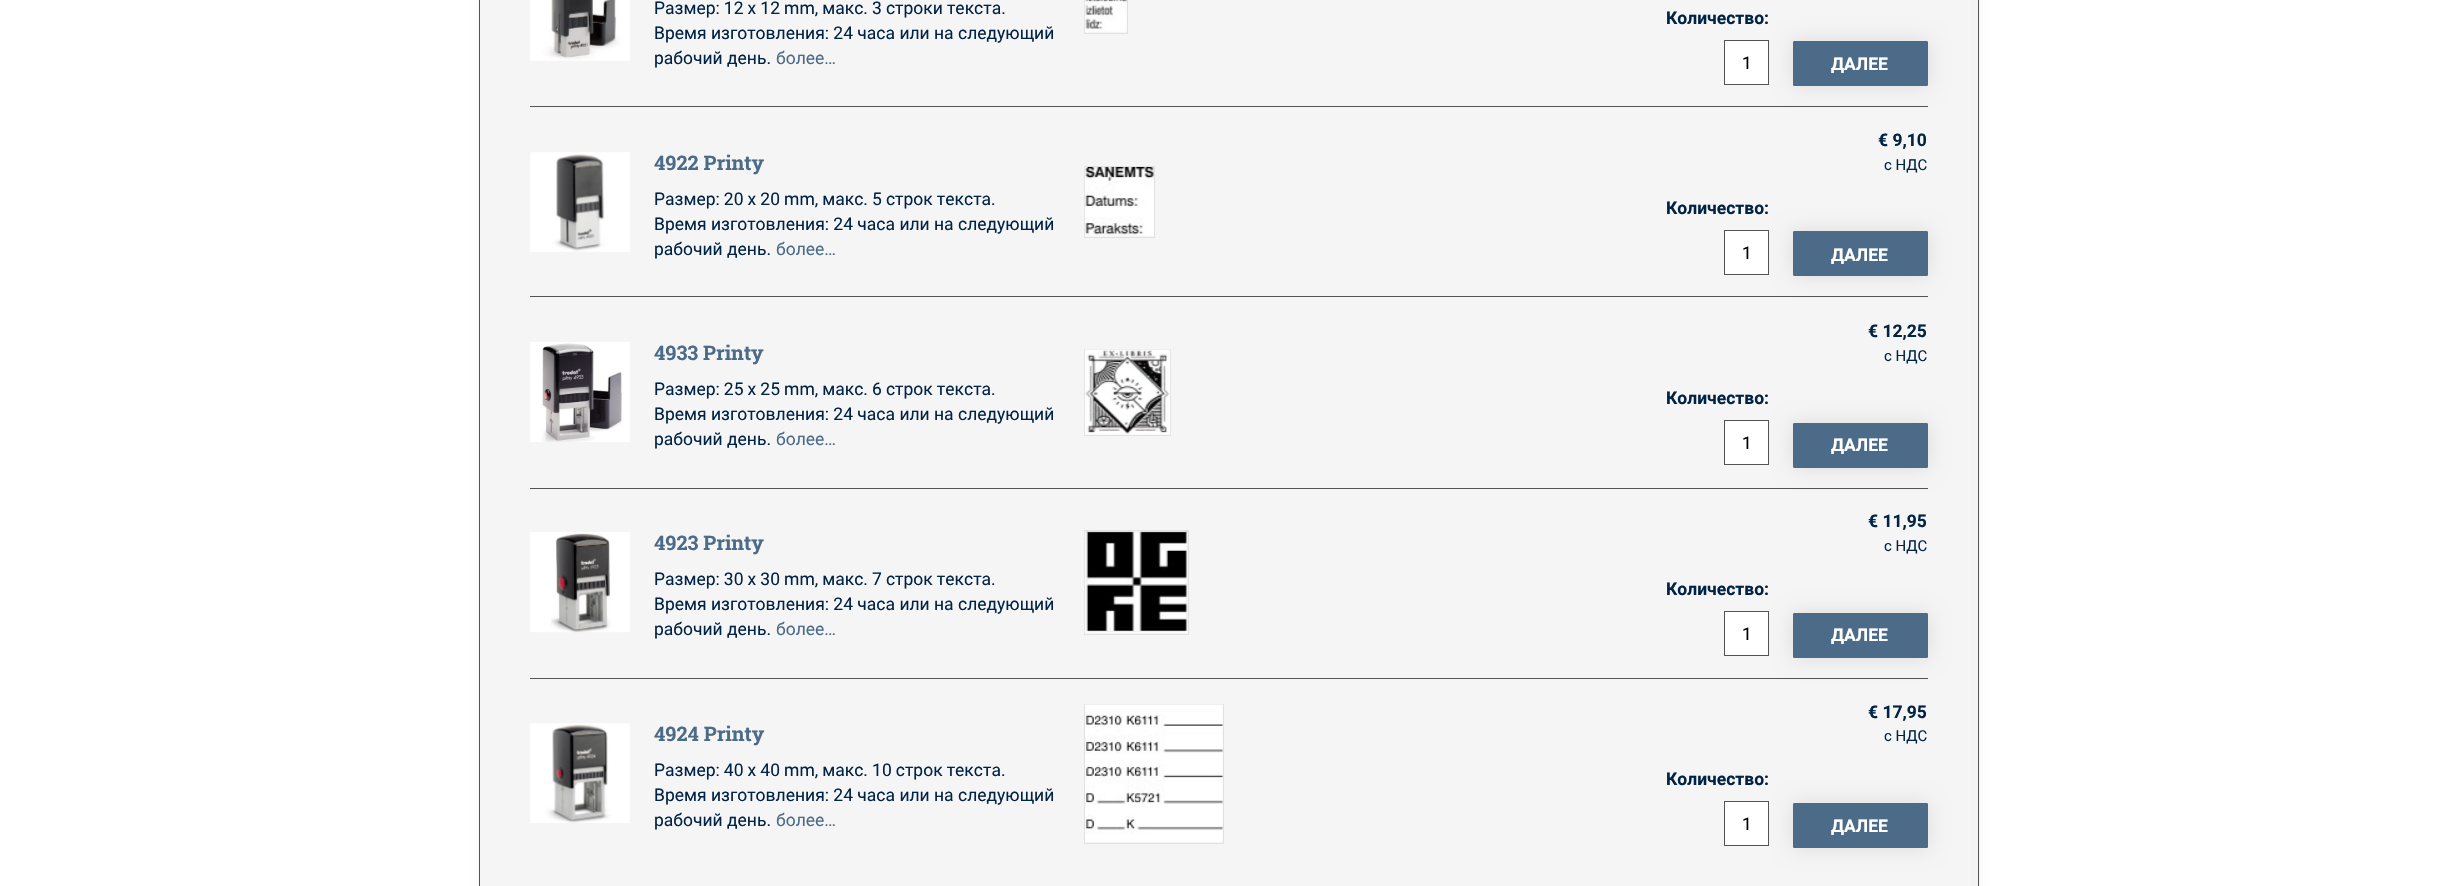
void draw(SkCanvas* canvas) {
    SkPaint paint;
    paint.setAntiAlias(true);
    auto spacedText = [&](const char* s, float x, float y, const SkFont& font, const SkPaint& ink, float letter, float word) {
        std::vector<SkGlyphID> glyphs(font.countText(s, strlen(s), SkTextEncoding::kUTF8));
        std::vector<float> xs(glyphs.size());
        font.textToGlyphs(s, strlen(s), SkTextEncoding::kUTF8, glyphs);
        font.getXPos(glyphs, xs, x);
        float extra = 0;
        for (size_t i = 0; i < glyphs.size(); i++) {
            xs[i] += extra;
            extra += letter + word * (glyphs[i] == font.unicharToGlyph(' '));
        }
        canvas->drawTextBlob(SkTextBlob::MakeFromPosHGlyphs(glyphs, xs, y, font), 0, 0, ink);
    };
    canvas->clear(0xFFFFFFFF);
    paint.setColor(0x0D000000);
    paint.setMaskFilter(SkMaskFilter::MakeBlur(kNormal_SkBlurStyle, 4));
    canvas->drawRoundRect(SkRect::MakeXYWH(480, -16, 1500, 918), 4, 4, paint);
    paint.setMaskFilter(nullptr);
    paint.setColor(0xFFF5F5F5);
    canvas->drawRect(SkRect::MakeXYWH(480, 0, 1491, 886), paint);
    paint.setStyle(SkPaint::kStroke_Style);
    paint.setStrokeWidth(1);
    paint.setColor(0xFF535353);
    canvas->drawRect(SkRect::MakeXYWH(479.5f, -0.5f, 1499, 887), paint);
    canvas->drawImageRect(SkImages::DeferredFromEncodedData(SkData::MakeFromFileName("img1.png")), SkRect::MakeXYWH(530, 0, 100, 61), SkSamplingOptions());
    SkFont font1(fontMgr->matchFamilyStyle("Roboto", SkFontStyle::Normal()), 17.5f);
    font1.setSubpixel(true);
    paint.setStyle(SkPaint::kFill_Style);
    paint.setColor(0xFF012345);
    spacedText("Размер: 12 x 12 mm, макс. 3 строки текста.", 654, 14, font1, paint, 0, -0.25f);
    canvas->drawString("Время изготовления: 24 часа или на следующий", 654, 39, font1, paint);
    canvas->drawString("рабочий день.", 654, 64, font1, paint);
    paint.setColor(0xFF4C6B89);
    canvas->drawString("более…", 776, 64, font1, paint);
    paint.setStyle(SkPaint::kStroke_Style);
    paint.setColor(0xFFE1E1E1);
    canvas->drawRect(SkRect::MakeXYWH(1084.5f, -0.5f, 43, 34), paint);
    canvas->drawImageRect(SkImages::DeferredFromEncodedData(SkData::MakeFromFileName("img2.png")), SkRect::MakeXYWH(1084, 0, 43, 32), SkSamplingOptions());
    SkFont font2(fontMgr->matchFamilyStyle("Roboto", SkFontStyle::Bold()), 17.5f);
    font2.setSubpixel(true);
    paint.setStyle(SkPaint::kFill_Style);
    paint.setColor(0xFF012345);
    canvas->drawString("Количество:", 1666, 24, font2, paint);
    paint.setColor(0xFFFFFFFF);
    canvas->drawRect(SkRect::MakeXYWH(1724.5f, 40.5f, 44, 44), paint);
    paint.setStyle(SkPaint::kStroke_Style);
    paint.setColor(0xFF535353);
    canvas->drawRect(SkRect::MakeXYWH(1724.5f, 40.5f, 44, 44), paint);
    paint.setStyle(SkPaint::kFill_Style);
    paint.setColor(0xFF000000);
    canvas->drawString("1", 1742, 69, font1, paint);
    paint.setColor(0x1A000000);
    paint.setMaskFilter(SkMaskFilter::MakeBlur(kNormal_SkBlurStyle, 10));
    canvas->drawRoundRect(SkRect::MakeXYWH(1793, 41, 135, 45), 1, 1, paint);
    paint.setMaskFilter(nullptr);
    paint.setColor(0xFF4C6B89);
    canvas->drawRoundRect(SkRect::MakeXYWH(1793.5f, 41.5f, 134, 44), 0.5f, 0.5f, paint);
    paint.setStyle(SkPaint::kStroke_Style);
    canvas->drawRoundRect(SkRect::MakeXYWH(1793.5f, 41.5f, 134, 44), 0.5f, 0.5f, paint);
    paint.setStyle(SkPaint::kFill_Style);
    paint.setColor(0xFFFFFFFF);
    canvas->drawString("ДАЛЕЕ", 1831, 70, font2, paint);
    paint.setColor(0xFF535353);
    canvas->drawRect(SkRect::MakeXYWH(530, 106, 1398, 1), paint);
    canvas->drawImageRect(SkImages::DeferredFromEncodedData(SkData::MakeFromFileName("img3.png")), SkRect::MakeXYWH(530, 152, 100, 100), SkSamplingOptions());
    SkFont font3(fontMgr->matchFamilyStyle("Roboto Slab", SkFontStyle::Bold()), 20);
    font3.setSubpixel(true);
    paint.setColor(0xFF4C6B89);
    canvas->drawString("4922 Printy", 654, 170, font3, paint);
    paint.setColor(0xFF012345);
    spacedText("Размер: 20 x 20 mm, макс. 5 строк текста.", 654, 205, font1, paint, 0, -0.25f);
    canvas->drawString("Время изготовления: 24 часа или на следующий", 654, 230, font1, paint);
    canvas->drawString("рабочий день.", 654, 255, font1, paint);
    paint.setColor(0xFF4C6B89);
    canvas->drawString("более…", 776, 255, font1, paint);
    paint.setStyle(SkPaint::kStroke_Style);
    paint.setColor(0xFFE1E1E1);
    canvas->drawRect(SkRect::MakeXYWH(1084.5f, 166.5f, 70, 71), paint);
    canvas->drawImageRect(SkImages::DeferredFromEncodedData(SkData::MakeFromFileName("img4.png")), SkRect::MakeXYWH(1084, 167, 70, 69), SkSamplingOptions());
    paint.setStyle(SkPaint::kFill_Style);
    paint.setColor(0xFF012345);
    canvas->drawString("€ 9,10", 1878, 146, font2, paint);
    SkFont font4(fontMgr->matchFamilyStyle("Roboto", SkFontStyle::Normal()), 15);
    font4.setSubpixel(true);
    canvas->drawString("с НДС", 1884, 170, font4, paint);
    canvas->drawString("Количество:", 1666, 214, font2, paint);
    paint.setColor(0xFFFFFFFF);
    canvas->drawRect(SkRect::MakeXYWH(1724.5f, 230.5f, 44, 44), paint);
    paint.setStyle(SkPaint::kStroke_Style);
    paint.setColor(0xFF535353);
    canvas->drawRect(SkRect::MakeXYWH(1724.5f, 230.5f, 44, 44), paint);
    paint.setStyle(SkPaint::kFill_Style);
    paint.setColor(0xFF000000);
    canvas->drawString("1", 1742, 259, font1, paint);
    paint.setColor(0x1A000000);
    paint.setMaskFilter(SkMaskFilter::MakeBlur(kNormal_SkBlurStyle, 10));
    canvas->drawRoundRect(SkRect::MakeXYWH(1793, 231, 135, 45), 1, 1, paint);
    paint.setMaskFilter(nullptr);
    paint.setColor(0xFF4C6B89);
    canvas->drawRoundRect(SkRect::MakeXYWH(1793.5f, 231.5f, 134, 44), 0.5f, 0.5f, paint);
    paint.setStyle(SkPaint::kStroke_Style);
    canvas->drawRoundRect(SkRect::MakeXYWH(1793.5f, 231.5f, 134, 44), 0.5f, 0.5f, paint);
    paint.setStyle(SkPaint::kFill_Style);
    paint.setColor(0xFFFFFFFF);
    canvas->drawString("ДАЛЕЕ", 1831, 261, font2, paint);
    paint.setColor(0xFF535353);
    canvas->drawRect(SkRect::MakeXYWH(530, 296, 1398, 1), paint);
    canvas->drawImageRect(SkImages::DeferredFromEncodedData(SkData::MakeFromFileName("img5.png")), SkRect::MakeXYWH(530, 342, 100, 100), SkSamplingOptions());
    paint.setColor(0xFF4C6B89);
    canvas->drawString("4933 Printy", 654, 360, font3, paint);
    paint.setColor(0xFF012345);
    spacedText("Размер: 25 x 25 mm, макс. 6 строк текста.", 654, 395, font1, paint, 0, -0.25f);
    canvas->drawString("Время изготовления: 24 часа или на следующий", 654, 420, font1, paint);
    canvas->drawString("рабочий день.", 654, 445, font1, paint);
    paint.setColor(0xFF4C6B89);
    canvas->drawString("более…", 776, 445, font1, paint);
    paint.setStyle(SkPaint::kStroke_Style);
    paint.setColor(0xFFE1E1E1);
    canvas->drawRect(SkRect::MakeXYWH(1084.5f, 349.5f, 86, 86), paint);
    canvas->drawImageRect(SkImages::DeferredFromEncodedData(SkData::MakeFromFileName("img6.png")), SkRect::MakeXYWH(1084, 349, 87, 86), SkSamplingOptions());
    paint.setStyle(SkPaint::kFill_Style);
    paint.setColor(0xFF012345);
    canvas->drawString("€ 12,25", 1868, 337, font2, paint);
    canvas->drawString("с НДС", 1884, 361, font4, paint);
    canvas->drawString("Количество:", 1666, 404, font2, paint);
    paint.setColor(0xFFFFFFFF);
    canvas->drawRect(SkRect::MakeXYWH(1724.5f, 420.5f, 44, 44), paint);
    paint.setStyle(SkPaint::kStroke_Style);
    paint.setColor(0xFF535353);
    canvas->drawRect(SkRect::MakeXYWH(1724.5f, 420.5f, 44, 44), paint);
    paint.setStyle(SkPaint::kFill_Style);
    paint.setColor(0xFF000000);
    canvas->drawString("1", 1742, 449, font1, paint);
    paint.setColor(0x1A000000);
    paint.setMaskFilter(SkMaskFilter::MakeBlur(kNormal_SkBlurStyle, 10));
    canvas->drawRoundRect(SkRect::MakeXYWH(1793, 423, 135, 45), 1, 1, paint);
    paint.setMaskFilter(nullptr);
    paint.setColor(0xFF4C6B89);
    canvas->drawRoundRect(SkRect::MakeXYWH(1793.5f, 423.5f, 134, 44), 0.5f, 0.5f, paint);
    paint.setStyle(SkPaint::kStroke_Style);
    canvas->drawRoundRect(SkRect::MakeXYWH(1793.5f, 423.5f, 134, 44), 0.5f, 0.5f, paint);
    paint.setStyle(SkPaint::kFill_Style);
    paint.setColor(0xFFFFFFFF);
    canvas->drawString("ДАЛЕЕ", 1831, 451, font2, paint);
    paint.setColor(0xFF535353);
    canvas->drawRect(SkRect::MakeXYWH(530, 488, 1398, 1), paint);
    canvas->drawImageRect(SkImages::DeferredFromEncodedData(SkData::MakeFromFileName("img7.png")), SkRect::MakeXYWH(530, 532, 100, 101), SkSamplingOptions());
    paint.setColor(0xFF4C6B89);
    canvas->drawString("4923 Printy", 654, 550, font3, paint);
    paint.setColor(0xFF012345);
    spacedText("Размер: 30 x 30 mm, макс. 7 строк текста.", 654, 585, font1, paint, 0, -0.25f);
    canvas->drawString("Время изготовления: 24 часа или на следующий", 654, 610, font1, paint);
    canvas->drawString("рабочий день.", 654, 635, font1, paint);
    paint.setColor(0xFF4C6B89);
    canvas->drawString("более…", 776, 635, font1, paint);
    paint.setStyle(SkPaint::kStroke_Style);
    paint.setColor(0xFFE1E1E1);
    canvas->drawRect(SkRect::MakeXYWH(1084.5f, 530.5f, 104, 104), paint);
    canvas->drawImageRect(SkImages::DeferredFromEncodedData(SkData::MakeFromFileName("img8.png")), SkRect::MakeXYWH(1084, 530, 104, 103), SkSamplingOptions());
    paint.setStyle(SkPaint::kFill_Style);
    paint.setColor(0xFF012345);
    canvas->drawString("€ 11,95", 1868, 527, font2, paint);
    canvas->drawString("с НДС", 1884, 551, font4, paint);
    canvas->drawString("Количество:", 1666, 595, font2, paint);
    paint.setColor(0xFFFFFFFF);
    canvas->drawRect(SkRect::MakeXYWH(1724.5f, 611.5f, 44, 44), paint);
    paint.setStyle(SkPaint::kStroke_Style);
    paint.setColor(0xFF535353);
    canvas->drawRect(SkRect::MakeXYWH(1724.5f, 611.5f, 44, 44), paint);
    paint.setStyle(SkPaint::kFill_Style);
    paint.setColor(0xFF000000);
    canvas->drawString("1", 1742, 640, font1, paint);
    paint.setColor(0x1A000000);
    paint.setMaskFilter(SkMaskFilter::MakeBlur(kNormal_SkBlurStyle, 10));
    canvas->drawRoundRect(SkRect::MakeXYWH(1793, 613, 135, 45), 1, 1, paint);
    paint.setMaskFilter(nullptr);
    paint.setColor(0xFF4C6B89);
    canvas->drawRoundRect(SkRect::MakeXYWH(1793.5f, 613.5f, 134, 44), 0.5f, 0.5f, paint);
    paint.setStyle(SkPaint::kStroke_Style);
    canvas->drawRoundRect(SkRect::MakeXYWH(1793.5f, 613.5f, 134, 44), 0.5f, 0.5f, paint);
    paint.setStyle(SkPaint::kFill_Style);
    paint.setColor(0xFFFFFFFF);
    canvas->drawString("ДАЛЕЕ", 1831, 641, font2, paint);
    paint.setColor(0xFF535353);
    canvas->drawRect(SkRect::MakeXYWH(530, 678, 1398, 1), paint);
    canvas->drawImageRect(SkImages::DeferredFromEncodedData(SkData::MakeFromFileName("img9.png")), SkRect::MakeXYWH(530, 723, 100, 100), SkSamplingOptions());
    paint.setColor(0xFF4C6B89);
    canvas->drawString("4924 Printy", 654, 741, font3, paint);
    paint.setColor(0xFF012345);
    spacedText("Размер: 40 x 40 mm, макс. 10 строк текста.", 654, 776, font1, paint, 0, -0.25f);
    canvas->drawString("Время изготовления: 24 часа или на следующий", 654, 801, font1, paint);
    canvas->drawString("рабочий день.", 654, 826, font1, paint);
    paint.setColor(0xFF4C6B89);
    canvas->drawString("более…", 776, 826, font1, paint);
    paint.setStyle(SkPaint::kStroke_Style);
    paint.setColor(0xFFE1E1E1);
    canvas->drawRect(SkRect::MakeXYWH(1084.5f, 704.5f, 139, 139), paint);
    canvas->drawImageRect(SkImages::DeferredFromEncodedData(SkData::MakeFromFileName("img10.png")), SkRect::MakeXYWH(1085, 704, 138, 138), SkSamplingOptions());
    paint.setStyle(SkPaint::kFill_Style);
    paint.setColor(0xFF012345);
    canvas->drawString("€ 17,95", 1868, 718, font2, paint);
    canvas->drawString("с НДС", 1884, 741, font4, paint);
    canvas->drawString("Количество:", 1666, 785, font2, paint);
    paint.setColor(0xFFFFFFFF);
    canvas->drawRect(SkRect::MakeXYWH(1724.5f, 801.5f, 44, 44), paint);
    paint.setStyle(SkPaint::kStroke_Style);
    paint.setColor(0xFF535353);
    canvas->drawRect(SkRect::MakeXYWH(1724.5f, 801.5f, 44, 44), paint);
    paint.setStyle(SkPaint::kFill_Style);
    paint.setColor(0xFF000000);
    canvas->drawString("1", 1742, 830, font1, paint);
    paint.setColor(0x1A000000);
    paint.setMaskFilter(SkMaskFilter::MakeBlur(kNormal_SkBlurStyle, 10));
    canvas->drawRoundRect(SkRect::MakeXYWH(1793, 803, 135, 45), 1, 1, paint);
    paint.setMaskFilter(nullptr);
    paint.setColor(0xFF4C6B89);
    canvas->drawRoundRect(SkRect::MakeXYWH(1793.5f, 803.5f, 134, 44), 0.5f, 0.5f, paint);
    paint.setStyle(SkPaint::kStroke_Style);
    canvas->drawRoundRect(SkRect::MakeXYWH(1793.5f, 803.5f, 134, 44), 0.5f, 0.5f, paint);
    paint.setStyle(SkPaint::kFill_Style);
    paint.setColor(0xFFFFFFFF);
    canvas->drawString("ДАЛЕЕ", 1831, 832, font2, paint);
}
